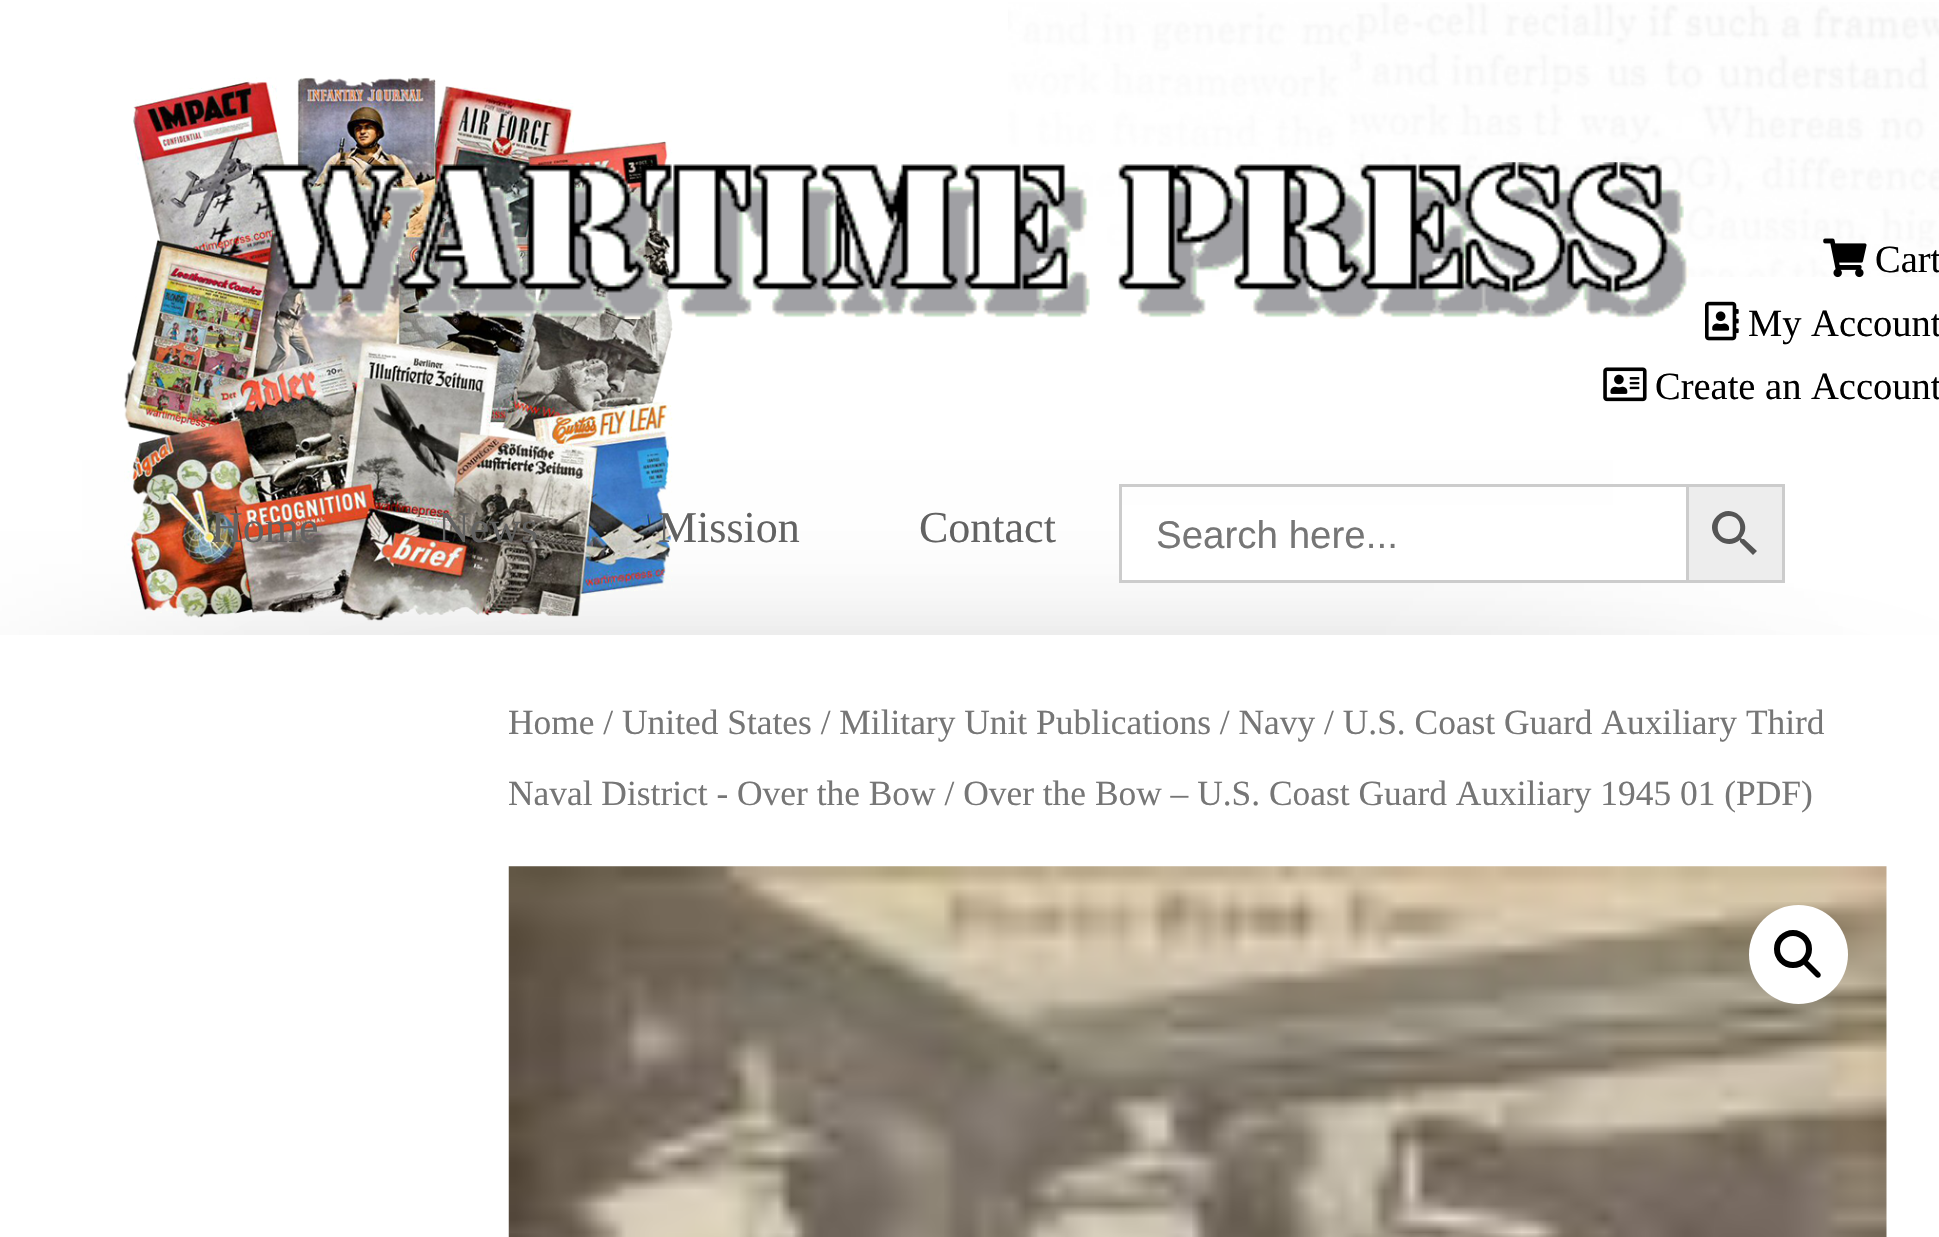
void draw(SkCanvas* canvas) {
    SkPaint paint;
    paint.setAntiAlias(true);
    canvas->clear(0xFFFFFFFF);
    canvas->drawImageRect(SkImages::DeferredFromEncodedData(SkData::MakeFromFileName("img1.png")), SkRect::MakeXYWH(1008, 2, 931, 275), SkSamplingOptions());
    paint.setColor(0xFF000000);
    paint.setMaskFilter(SkMaskFilter::MakeBlur(kNormal_SkBlurStyle, 137.5f));
    canvas->drawRect(SkRect::MakeXYWH(371, 883, 1447, 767), paint);
    paint.setMaskFilter(nullptr);
    paint.setMaskFilter(SkMaskFilter::MakeBlur(kNormal_SkBlurStyle, 137.5f));
    canvas->drawRect(SkRect::MakeXYWH(83, 842, 1529, 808), paint);
    paint.setMaskFilter(nullptr);
    canvas->drawImageRect(SkImages::DeferredFromEncodedData(SkData::MakeFromFileName("img2.png")), SkRect::MakeXYWH(124, 77, 549, 545), SkSamplingOptions());
    canvas->drawImageRect(SkImages::DeferredFromEncodedData(SkData::MakeFromFileName("img3.png")), SkRect::MakeXYWH(253, 162, 1436, 157), SkSamplingOptions());
    canvas->drawImageRect(SkImages::DeferredFromEncodedData(SkData::MakeFromFileName("img4.png")), SkRect::MakeXYWH(1823, 238, 44, 40), SkSamplingOptions());
    SkFont font1(fontMgr->matchFamilyStyle("Liberation Serif", SkFontStyle::Normal()), 38.5f);
    font1.setSubpixel(true);
    canvas->drawString("Cart", 1875, 272, font1, paint);
    canvas->drawImageRect(SkImages::DeferredFromEncodedData(SkData::MakeFromFileName("img5.png")), SkRect::MakeXYWH(1705, 301, 34, 40), SkSamplingOptions());
    canvas->drawString("My Account", 1748, 336, font1, paint);
    canvas->drawImageRect(SkImages::DeferredFromEncodedData(SkData::MakeFromFileName("img6.png")), SkRect::MakeXYWH(1603, 367, 44, 35), SkSamplingOptions());
    canvas->drawString("Create an Account", 1655, 399, font1, paint);
    SkFont font2(fontMgr->matchFamilyStyle("Liberation Serif", SkFontStyle::Normal()), 44);
    font2.setSubpixel(true);
    paint.setColor(0xFF626262);
    canvas->drawString("Home", 211, 542, font2, paint);
    canvas->drawString("News", 438, 542, font2, paint);
    canvas->drawString("Mission", 658, 542, font2, paint);
    canvas->drawString("Contact", 919, 542, font2, paint);
    paint.setColor(0xFFFFFFFF);
    canvas->drawRect(SkRect::MakeXYWH(1122, 505, 564, 75), paint);
    paint.setColor(0xFFCCCCCC);
    canvas->drawRect(SkRect::MakeXYWH(1119, 484, 567, 3), paint);
    canvas->drawRect(SkRect::MakeXYWH(1119, 580, 567, 3), paint);
    canvas->drawRect(SkRect::MakeXYWH(1119, 484, 3, 99), paint);
    SkFont font3(fontMgr->matchFamilyStyle("Liberation Sans", SkFontStyle::Normal()), 38.5f);
    font3.setSubpixel(true);
    paint.setColor(0xFF767676);
    canvas->drawString("Search here...", 1156, 548, font3, paint);
    paint.setColor(0xFFEDEDED);
    canvas->drawRect(SkRect::MakeXYWH(1687.5f, 485.5f, 96, 96), paint);
    paint.setStyle(SkPaint::kStroke_Style);
    paint.setStrokeWidth(3);
    paint.setColor(0xFFCCCCCC);
    canvas->drawRect(SkRect::MakeXYWH(1687.5f, 485.5f, 96, 96), paint);
    paint.setStyle(SkPaint::kFill_Style);
    paint.setColor(0xFF555555);
    canvas->drawPath(SkPathBuilder().moveTo(1744, 539).lineTo(1742, 539).lineTo(1741, 538).cubicTo(1755, 523, 1732, 501, 1717, 516).cubicTo(1702, 531, 1724, 553, 1740, 540).lineTo(1740, 542).lineTo(1753, 555).lineTo(1757, 551).close().moveTo(1729, 539).cubicTo(1714, 539, 1714, 516, 1729, 516).cubicTo(1744, 516, 1744, 539, 1729, 539).close().detach(), paint);
    paint.setColor(0xFFFFFFFF);
    canvas->drawRect(SkRect::MakeXYWH(0, 635, 1939, 602), paint);
    SkFont font4(fontMgr->matchFamilyStyle("Liberation Serif", SkFontStyle::Normal()), 35.4f);
    font4.setSubpixel(true);
    paint.setColor(0xFF767676);
    canvas->drawString("Home / United States / Military Unit Publications / Navy / U.S. Coast Guard Auxiliary Third", 508, 734, font4, paint);
    canvas->drawString("Naval District - Over the Bow / Over the Bow – U.S. Coast Guard Auxiliary 1945 01 (PDF)", 508, 805, font4, paint);
    canvas->drawImageRect(SkImages::DeferredFromEncodedData(SkData::MakeFromFileName("img7.png")), SkRect::MakeXYWH(508, 866, 1379, 371), SkSamplingOptions());
    paint.setColor(0xFFFFFFFF);
    canvas->drawCircle(1798.5f, 954.5f, 49.5f, paint);
    paint.setStyle(SkPaint::kStroke_Style);
    paint.setStrokeWidth(6);
    paint.setColor(0xFF000000);
    canvas->drawCircle(1793, 949, 16, paint);
    paint.setStyle(SkPaint::kFill_Style);
    canvas->drawPath(SkPathBuilder().moveTo(1804.5f, 961.5f).cubicTo(1805.5f, 960.5f, 1807.5f, 960.5f, 1808.5f, 961.5f).lineTo(1820, 973).cubicTo(1821, 974, 1821, 976, 1820, 977).cubicTo(1819, 978, 1817, 978, 1816, 977).lineTo(1804.5f, 965.5f).cubicTo(1803.5f, 964, 1803.5f, 962.5f, 1804.5f, 961.5f).close().detach(), paint);
}
